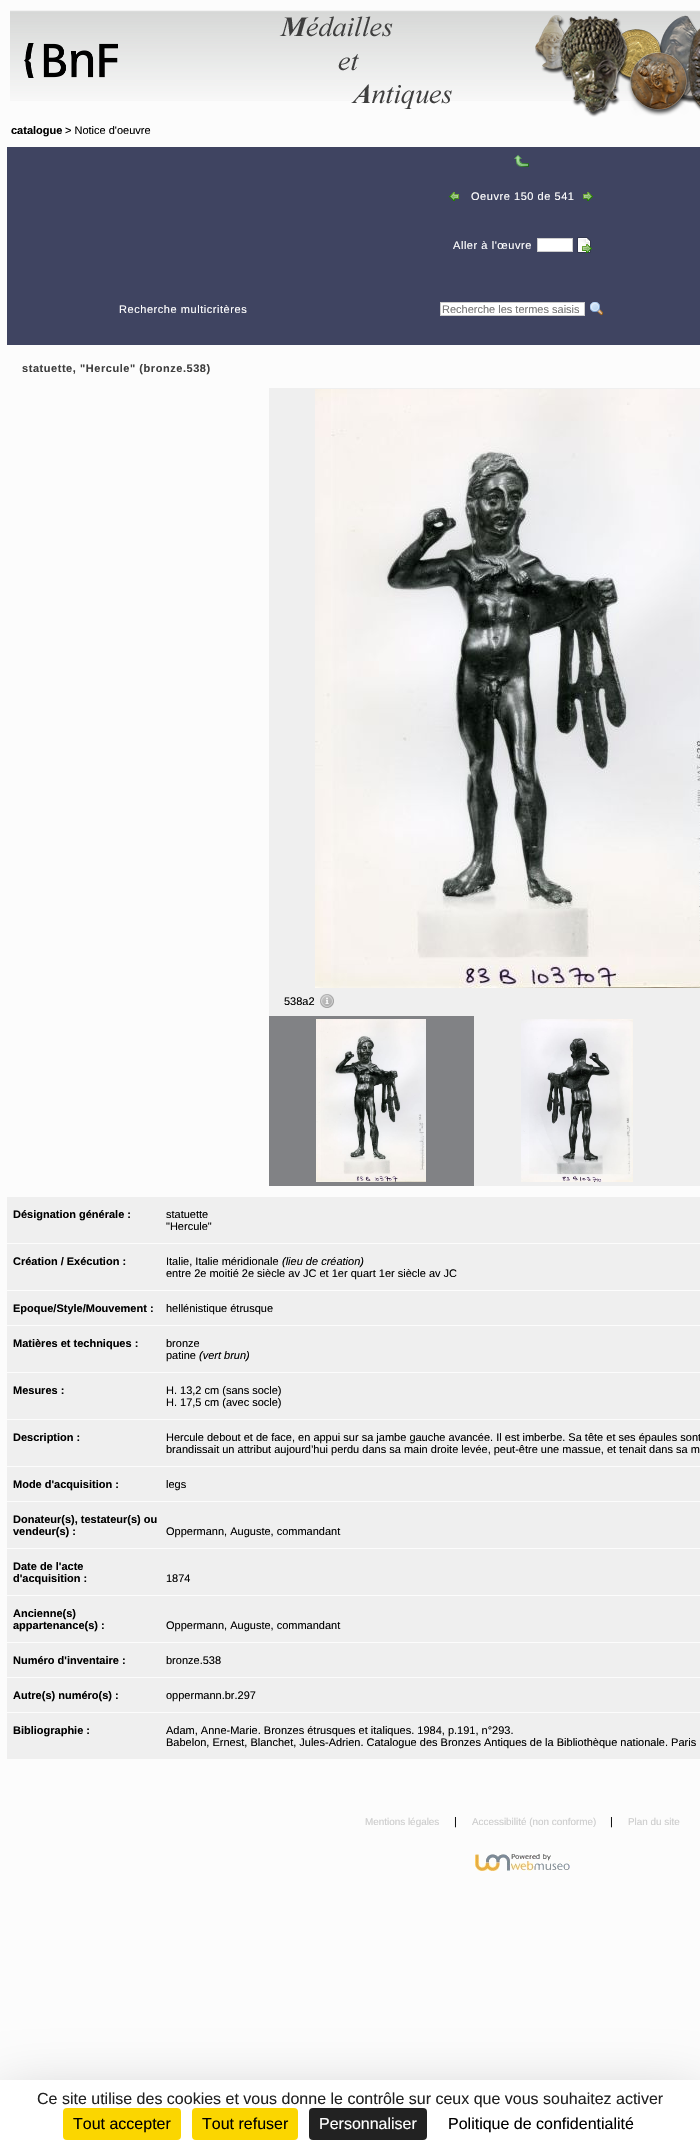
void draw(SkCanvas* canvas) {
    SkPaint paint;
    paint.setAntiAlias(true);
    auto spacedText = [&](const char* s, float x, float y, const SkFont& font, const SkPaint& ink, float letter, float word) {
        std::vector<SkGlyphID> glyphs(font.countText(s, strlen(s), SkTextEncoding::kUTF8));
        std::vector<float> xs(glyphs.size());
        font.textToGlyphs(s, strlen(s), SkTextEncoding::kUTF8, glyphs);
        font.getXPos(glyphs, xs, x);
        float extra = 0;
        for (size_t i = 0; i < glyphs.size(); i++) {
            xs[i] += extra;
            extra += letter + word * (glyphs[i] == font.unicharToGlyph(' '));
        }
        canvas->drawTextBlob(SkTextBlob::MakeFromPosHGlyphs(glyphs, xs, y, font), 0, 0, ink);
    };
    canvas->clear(0xFFFCFCFC);
    canvas->drawImageRect(SkImages::DeferredFromEncodedData(SkData::MakeFromFileName("img1.png")), SkRect::MakeXYWH(10, 10, 690, 91), SkSamplingOptions());
    canvas->drawImageRect(SkImages::DeferredFromEncodedData(SkData::MakeFromFileName("img2.png")), SkRect::MakeXYWH(24, 16, 428, 93), SkSamplingOptions());
    canvas->drawImageRect(SkImages::DeferredFromEncodedData(SkData::MakeFromFileName("img3.png")), SkRect::MakeXYWH(535, 15, 165, 102), SkSamplingOptions());
    SkFont font1(fontMgr->matchFamilyStyle("Liberation Sans", SkFontStyle::Bold()), 11);
    font1.setSubpixel(true);
    paint.setColor(0xFF000000);
    canvas->drawString("catalogue", 11, 134, font1, paint);
    SkFont font2(fontMgr->matchFamilyStyle("Liberation Sans", SkFontStyle::Normal()), 11);
    font2.setSubpixel(true);
    canvas->drawString("> Notice d'oeuvre", 65, 134, font2, paint);
    paint.setColor(0xFF3F4461);
    canvas->drawRect(SkRect::MakeXYWH(7, 147, 693, 198), paint);
    canvas->drawImageRect(SkImages::DeferredFromEncodedData(SkData::MakeFromFileName("img4.png")), SkRect::MakeXYWH(514, 155, 15, 12), SkSamplingOptions());
    canvas->drawImageRect(SkImages::DeferredFromEncodedData(SkData::MakeFromFileName("img5.png")), SkRect::MakeXYWH(449, 192, 10, 9), SkSamplingOptions());
    paint.setColor(0xFFFFFFFF);
    spacedText("Oeuvre 150 de 541", 471, 200, font2, paint, 0.55f, 0);
    canvas->drawImageRect(SkImages::DeferredFromEncodedData(SkData::MakeFromFileName("img6.png")), SkRect::MakeXYWH(583, 192, 10, 9), SkSamplingOptions());
    spacedText("Aller à l'œuvre", 453, 249, font2, paint, 0.55f, 0);
    canvas->drawRect(SkRect::MakeXYWH(537.5f, 238.5f, 35, 13), paint);
    paint.setStyle(SkPaint::kStroke_Style);
    paint.setStrokeWidth(1);
    paint.setColor(0xFFCCCCCC);
    canvas->drawRect(SkRect::MakeXYWH(537.5f, 238.5f, 35, 13), paint);
    canvas->drawImageRect(SkImages::DeferredFromEncodedData(SkData::MakeFromFileName("img7.png")), SkRect::MakeXYWH(577, 237, 15, 16), SkSamplingOptions());
    paint.setStyle(SkPaint::kFill_Style);
    paint.setColor(0xFFFFFFFF);
    spacedText("Recherche multicritères", 119, 313, font2, paint, 0.55f, 0);
    canvas->drawRect(SkRect::MakeXYWH(440.5f, 302.5f, 144, 13), paint);
    paint.setStyle(SkPaint::kStroke_Style);
    paint.setColor(0xFFCCCCCC);
    canvas->drawRect(SkRect::MakeXYWH(440.5f, 302.5f, 144, 13), paint);
    paint.setStyle(SkPaint::kFill_Style);
    paint.setColor(0xFF757575);
    canvas->drawString("Recherche les termes saisis", 442, 313, font2, paint);
    canvas->drawImageRect(SkImages::DeferredFromEncodedData(SkData::MakeFromFileName("img8.png")), SkRect::MakeXYWH(590, 302, 13, 14), SkSamplingOptions());
    paint.setColor(0xFF3F3F3F);
    spacedText("statuette, \"Hercule\" (bronze.538)", 22, 372, font1, paint, 0.55f, 0);
    paint.setColor(0xFFEFEFEF);
    canvas->drawRect(SkRect::MakeXYWH(269, 388, 431, 798), paint);
    canvas->drawImageRect(SkImages::DeferredFromEncodedData(SkData::MakeFromFileName("img9.png")), SkRect::MakeXYWH(315, 389, 385, 599), SkSamplingOptions());
    paint.setColor(0xFF000000);
    canvas->drawString("538a2", 284, 1005, font2, paint);
    canvas->drawImageRect(SkImages::DeferredFromEncodedData(SkData::MakeFromFileName("img10.png")), SkRect::MakeXYWH(320, 994, 14, 14), SkSamplingOptions());
    paint.setColor(0xFF818285);
    canvas->drawRect(SkRect::MakeXYWH(269, 1016, 205, 170), paint);
    canvas->drawImageRect(SkImages::DeferredFromEncodedData(SkData::MakeFromFileName("img11.png")), SkRect::MakeXYWH(316, 1019, 110, 163), SkSamplingOptions());
    canvas->drawImageRect(SkImages::DeferredFromEncodedData(SkData::MakeFromFileName("img12.png")), SkRect::MakeXYWH(521, 1019, 112, 163), SkSamplingOptions());
    paint.setColor(0xFFEFEFEF);
    canvas->drawRect(SkRect::MakeXYWH(7, 1197, 693, 562), paint);
    paint.setColor(0xFF000000);
    canvas->drawString("Désignation générale :", 13, 1218, font1, paint);
    canvas->drawString("statuette", 166, 1218, font2, paint);
    canvas->drawString("\"Hercule\"", 166, 1230, font2, paint);
    paint.setColor(0xFFFCFCFC);
    canvas->drawRect(SkRect::MakeXYWH(7, 1243, 693, 1), paint);
    paint.setColor(0xFF000000);
    canvas->drawString("Création / Exécution :", 13, 1265, font1, paint);
    canvas->drawString("Italie, Italie méridionale", 166, 1265, font2, paint);
    SkFont font3(fontMgr->matchFamilyStyle("Liberation Sans", SkFontStyle::Italic()), 11);
    font3.setSubpixel(true);
    canvas->drawString("(lieu de création)", 282, 1265, font3, paint);
    canvas->drawString("entre 2e moitié 2e siècle av JC et 1er quart 1er siècle av JC", 166, 1277, font2, paint);
    paint.setColor(0xFFFCFCFC);
    canvas->drawRect(SkRect::MakeXYWH(7, 1290, 693, 1), paint);
    paint.setColor(0xFF000000);
    canvas->drawString("Epoque/Style/Mouvement :", 13, 1312, font1, paint);
    canvas->drawString("hellénistique étrusque", 166, 1312, font2, paint);
    paint.setColor(0xFFFCFCFC);
    canvas->drawRect(SkRect::MakeXYWH(7, 1325, 693, 1), paint);
    paint.setColor(0xFF000000);
    canvas->drawString("Matières et techniques :", 13, 1347, font1, paint);
    canvas->drawString("bronze", 166, 1347, font2, paint);
    canvas->drawString("patine", 166, 1359, font2, paint);
    canvas->drawString("(vert brun)", 199, 1359, font3, paint);
    paint.setColor(0xFFFCFCFC);
    canvas->drawRect(SkRect::MakeXYWH(7, 1372, 693, 1), paint);
    paint.setColor(0xFF000000);
    canvas->drawString("Mesures :", 13, 1394, font1, paint);
    canvas->drawString("H. 13,2 cm (sans socle)", 166, 1394, font2, paint);
    canvas->drawString("H. 17,5 cm (avec socle)", 166, 1406, font2, paint);
    paint.setColor(0xFFFCFCFC);
    canvas->drawRect(SkRect::MakeXYWH(7, 1419, 693, 1), paint);
    paint.setColor(0xFF000000);
    canvas->drawString("Description :", 13, 1441, font1, paint);
    canvas->drawString("Hercule debout et de face, en appui sur sa jambe gauche avancée. Il est imberbe. Sa tête et ses épaules sont", 166, 1441, font2, paint);
    canvas->drawString("brandissait un attribut aujourd’hui perdu dans sa main droite levée, peut-être une massue, et tenait dans sa m", 166, 1453, font2, paint);
    paint.setColor(0xFFFCFCFC);
    canvas->drawRect(SkRect::MakeXYWH(7, 1466, 693, 1), paint);
    paint.setColor(0xFF000000);
    canvas->drawString("Mode d'acquisition :", 13, 1488, font1, paint);
    canvas->drawString("legs", 166, 1488, font2, paint);
    paint.setColor(0xFFFCFCFC);
    canvas->drawRect(SkRect::MakeXYWH(7, 1501, 693, 1), paint);
    paint.setColor(0xFF000000);
    canvas->drawString("Donateur(s), testateur(s) ou", 13, 1523, font1, paint);
    canvas->drawString("vendeur(s) :", 13, 1535, font1, paint);
    canvas->drawString("Oppermann, Auguste, commandant", 166, 1535, font2, paint);
    paint.setColor(0xFFFCFCFC);
    canvas->drawRect(SkRect::MakeXYWH(7, 1548, 693, 1), paint);
    paint.setColor(0xFF000000);
    canvas->drawString("Date de l'acte", 13, 1570, font1, paint);
    canvas->drawString("d'acquisition :", 13, 1582, font1, paint);
    canvas->drawString("1874", 166, 1582, font2, paint);
    paint.setColor(0xFFFCFCFC);
    canvas->drawRect(SkRect::MakeXYWH(7, 1595, 693, 1), paint);
    paint.setColor(0xFF000000);
    canvas->drawString("Ancienne(s)", 13, 1617, font1, paint);
    canvas->drawString("appartenance(s) :", 13, 1629, font1, paint);
    canvas->drawString("Oppermann, Auguste, commandant", 166, 1629, font2, paint);
    paint.setColor(0xFFFCFCFC);
    canvas->drawRect(SkRect::MakeXYWH(7, 1642, 693, 1), paint);
    paint.setColor(0xFF000000);
    canvas->drawString("Numéro d'inventaire :", 13, 1664, font1, paint);
    canvas->drawString("bronze.538", 166, 1664, font2, paint);
    paint.setColor(0xFFFCFCFC);
    canvas->drawRect(SkRect::MakeXYWH(7, 1677, 693, 1), paint);
    paint.setColor(0xFF000000);
    canvas->drawString("Autre(s) numéro(s) :", 13, 1699, font1, paint);
    canvas->drawString("oppermann.br.297", 166, 1699, font2, paint);
    paint.setColor(0xFFFCFCFC);
    canvas->drawRect(SkRect::MakeXYWH(7, 1712, 693, 1), paint);
    paint.setColor(0xFF000000);
    canvas->drawString("Bibliographie :", 13, 1734, font1, paint);
    canvas->drawString("Adam, Anne-Marie. Bronzes étrusques et italiques. 1984, p.191, n°293.", 166, 1734, font2, paint);
    canvas->drawString("Babelon, Ernest, Blanchet, Jules-Adrien. Catalogue des Bronzes Antiques de la Bibliothèque nationale. Paris", 166, 1746, font2, paint);
    SkFont font4(fontMgr->matchFamilyStyle("Liberation Sans", SkFontStyle::Normal()), 9.9f);
    font4.setSubpixel(true);
    paint.setColor(0xFFCCCCCC);
    canvas->drawString("Mentions légales", 365, 1825, font4, paint);
    paint.setColor(0xFF000000);
    canvas->drawString("|", 454, 1825, font2, paint);
    paint.setColor(0xFFCCCCCC);
    canvas->drawString("Accessibilité (non conforme)", 472, 1825, font4, paint);
    paint.setColor(0xFF000000);
    canvas->drawString("|", 610, 1825, font2, paint);
    paint.setColor(0xFFCCCCCC);
    canvas->drawString("Plan du site", 628, 1825, font4, paint);
    canvas->drawImageRect(SkImages::DeferredFromEncodedData(SkData::MakeFromFileName("img13.png")), SkRect::MakeXYWH(475, 1854, 95, 17), SkSamplingOptions());
    paint.setColor(0x40000000);
    paint.setMaskFilter(SkMaskFilter::MakeBlur(kNormal_SkBlurStyle, 30));
    canvas->drawRect(SkRect::MakeXYWH(0, 2100, 700, 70), paint);
    paint.setMaskFilter(nullptr);
    paint.setColor(0xFFFFFFFF);
    canvas->drawRect(SkRect::MakeXYWH(0, 2080, 700, 70), paint);
    SkFont font5(fontMgr->matchFamilyStyle("Liberation Sans", SkFontStyle::Normal()), 16);
    font5.setSubpixel(true);
    paint.setColor(0xFF222222);
    canvas->drawString("Ce site utilise des cookies et vous donne le contrôle sur ceux que vous souhaitez activer", 37, 2104, font5, paint);
    paint.setColor(0xFFFBD600);
    canvas->drawRoundRect(SkRect::MakeXYWH(63, 2108, 118, 32), 4, 4, paint);
    paint.setColor(0xFF000000);
    canvas->drawString("Tout accepter", 73, 2129, font5, paint);
    paint.setColor(0xFFFBD600);
    canvas->drawRoundRect(SkRect::MakeXYWH(192, 2108, 106, 32), 4, 4, paint);
    paint.setColor(0xFF000000);
    canvas->drawString("Tout refuser", 202, 2129, font5, paint);
    paint.setColor(0xFF222222);
    canvas->drawRoundRect(SkRect::MakeXYWH(309, 2108, 118, 32), 4, 4, paint);
    paint.setColor(0xFFFFFFFF);
    canvas->drawString("Personnaliser", 319, 2129, font5, paint);
    paint.setColor(0xFF000000);
    canvas->drawString("Politique de confidentialité", 448, 2129, font5, paint);
}
